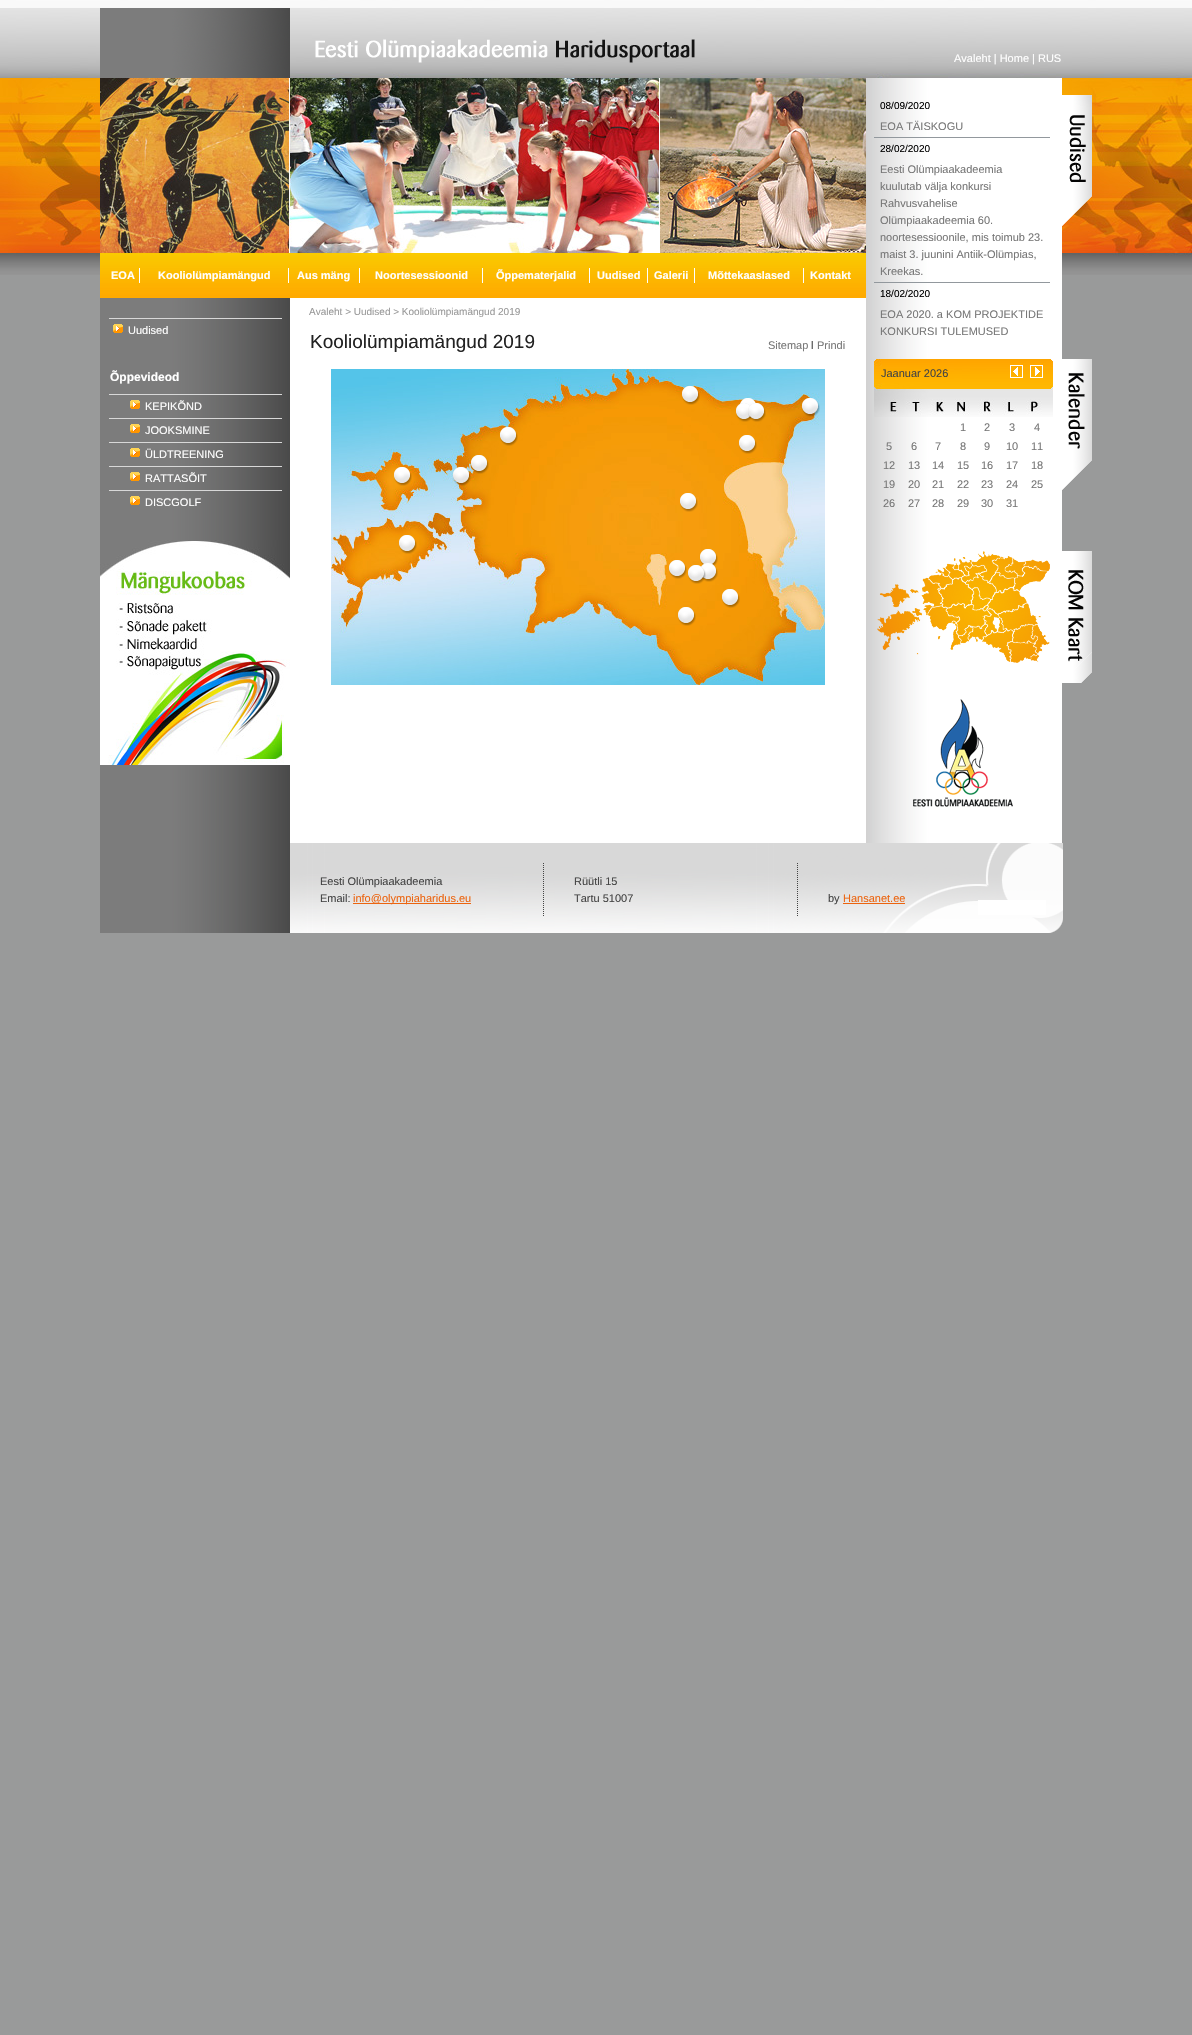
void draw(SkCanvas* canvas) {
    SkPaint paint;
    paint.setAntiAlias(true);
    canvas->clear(0xFF999A9A);
    canvas->drawImageRect(SkImages::DeferredFromEncodedData(SkData::MakeFromFileName("img1.png")), SkRect::MakeXYWH(0, 0, 1192, 275), SkSamplingOptions());
    canvas->drawImageRect(SkImages::DeferredFromEncodedData(SkData::MakeFromFileName("img2.png")), SkRect::MakeXYWH(100, 8, 595, 70), SkSamplingOptions());
    SkFont font1(fontMgr->matchFamilyStyle("Liberation Sans", SkFontStyle::Normal()), 11);
    font1.setSubpixel(true);
    paint.setColor(0xFFFFFFFF);
    canvas->drawString("Avaleht | Home | RUS", 954, 62, font1, paint);
    canvas->drawRect(SkRect::MakeXYWH(290, 298, 576, 545), paint);
    canvas->drawImageRect(SkImages::DeferredFromEncodedData(SkData::MakeFromFileName("img3.png")), SkRect::MakeXYWH(100, 298, 190, 545), SkSamplingOptions());
    canvas->drawImageRect(SkImages::DeferredFromEncodedData(SkData::MakeFromFileName("img4.png")), SkRect::MakeXYWH(100, 78, 766, 175), SkSamplingOptions());
    canvas->drawImageRect(SkImages::DeferredFromEncodedData(SkData::MakeFromFileName("img5.png")), SkRect::MakeXYWH(100, 253, 766, 45), SkSamplingOptions());
    SkFont font2(fontMgr->matchFamilyStyle("Liberation Sans", SkFontStyle::Bold()), 11);
    font2.setSubpixel(true);
    canvas->drawString("EOA", 111, 279, font2, paint);
    canvas->drawRect(SkRect::MakeXYWH(139, 268, 1, 15), paint);
    canvas->drawString("Kooliolümpiamängud", 158, 279, font2, paint);
    canvas->drawRect(SkRect::MakeXYWH(288, 268, 1, 15), paint);
    canvas->drawString("Aus mäng", 297, 279, font2, paint);
    canvas->drawRect(SkRect::MakeXYWH(359, 268, 1, 15), paint);
    canvas->drawString("Noortesessioonid", 375, 279, font2, paint);
    canvas->drawRect(SkRect::MakeXYWH(482, 268, 1, 15), paint);
    canvas->drawString("Õppematerjalid", 496, 279, font2, paint);
    canvas->drawRect(SkRect::MakeXYWH(589, 268, 1, 15), paint);
    canvas->drawString("Uudised", 597, 279, font2, paint);
    canvas->drawRect(SkRect::MakeXYWH(647, 268, 1, 15), paint);
    canvas->drawString("Galerii", 654, 279, font2, paint);
    canvas->drawRect(SkRect::MakeXYWH(694, 268, 1, 15), paint);
    canvas->drawString("Mõttekaaslased", 708, 279, font2, paint);
    canvas->drawRect(SkRect::MakeXYWH(803, 268, 1, 15), paint);
    canvas->drawString("Kontakt", 810, 279, font2, paint);
    paint.setColor(0xFFD8D8D8);
    canvas->drawRect(SkRect::MakeXYWH(109, 318, 173, 1), paint);
    canvas->drawImageRect(SkImages::DeferredFromEncodedData(SkData::MakeFromFileName("img6.png")), SkRect::MakeXYWH(113, 324, 10, 9), SkSamplingOptions());
    paint.setColor(0xFFFFFFFF);
    canvas->drawString("Uudised", 128, 334, font1, paint);
    SkFont font3(fontMgr->matchFamilyStyle("Liberation Sans", SkFontStyle::Bold()), 12);
    font3.setSubpixel(true);
    canvas->drawString("Õppevideod", 110, 381, font3, paint);
    paint.setColor(0xFFD8D8D8);
    canvas->drawRect(SkRect::MakeXYWH(109, 394, 173, 1), paint);
    canvas->drawImageRect(SkImages::DeferredFromEncodedData(SkData::MakeFromFileName("img6.png")), SkRect::MakeXYWH(130, 400, 10, 9), SkSamplingOptions());
    paint.setColor(0xFFFFFFFF);
    canvas->drawString("KEPIKÕND", 145, 410, font1, paint);
    paint.setColor(0xFFD8D8D8);
    canvas->drawRect(SkRect::MakeXYWH(109, 418, 173, 1), paint);
    canvas->drawImageRect(SkImages::DeferredFromEncodedData(SkData::MakeFromFileName("img6.png")), SkRect::MakeXYWH(130, 424, 10, 9), SkSamplingOptions());
    paint.setColor(0xFFFFFFFF);
    canvas->drawString("JOOKSMINE", 145, 434, font1, paint);
    paint.setColor(0xFFD8D8D8);
    canvas->drawRect(SkRect::MakeXYWH(109, 442, 173, 1), paint);
    canvas->drawImageRect(SkImages::DeferredFromEncodedData(SkData::MakeFromFileName("img6.png")), SkRect::MakeXYWH(130, 448, 10, 9), SkSamplingOptions());
    paint.setColor(0xFFFFFFFF);
    canvas->drawString("ÜLDTREENING", 145, 458, font1, paint);
    paint.setColor(0xFFD8D8D8);
    canvas->drawRect(SkRect::MakeXYWH(109, 466, 173, 1), paint);
    canvas->drawImageRect(SkImages::DeferredFromEncodedData(SkData::MakeFromFileName("img6.png")), SkRect::MakeXYWH(130, 472, 10, 9), SkSamplingOptions());
    paint.setColor(0xFFFFFFFF);
    canvas->drawString("RATTASÕIT", 145, 482, font1, paint);
    paint.setColor(0xFFD8D8D8);
    canvas->drawRect(SkRect::MakeXYWH(109, 490, 173, 1), paint);
    canvas->drawImageRect(SkImages::DeferredFromEncodedData(SkData::MakeFromFileName("img6.png")), SkRect::MakeXYWH(130, 496, 10, 9), SkSamplingOptions());
    paint.setColor(0xFFFFFFFF);
    canvas->drawString("DISCGOLF", 145, 506, font1, paint);
    canvas->drawImageRect(SkImages::DeferredFromEncodedData(SkData::MakeFromFileName("img7.png")), SkRect::MakeXYWH(100, 540, 190, 225), SkSamplingOptions());
    SkFont font4(fontMgr->matchFamilyStyle("Liberation Sans", SkFontStyle::Normal()), 10);
    font4.setSubpixel(true);
    paint.setColor(0xFF999999);
    canvas->drawString("Avaleht > Uudised > Kooliolümpiamängud 2019", 309, 315, font4, paint);
    SkFont font5(fontMgr->matchFamilyStyle("Liberation Sans", SkFontStyle::Normal()), 19);
    font5.setSubpixel(true);
    paint.setColor(0xFF222222);
    canvas->drawString("Kooliolümpiamängud 2019", 310, 348, font5, paint);
    paint.setColor(0xFF777777);
    canvas->drawString("Sitemap", 768, 349, font1, paint);
    paint.setColor(0xFF444444);
    canvas->drawString("l", 811, 349, font1, paint);
    paint.setColor(0xFF777777);
    canvas->drawString("Prindi", 817, 349, font1, paint);
    canvas->drawImageRect(SkImages::DeferredFromEncodedData(SkData::MakeFromFileName("img8.png")), SkRect::MakeXYWH(331, 369, 494, 316), SkSamplingOptions());
    canvas->drawImageRect(SkImages::DeferredFromEncodedData(SkData::MakeFromFileName("img9.png")), SkRect::MakeXYWH(682, 386, 18, 19), SkSamplingOptions());
    canvas->drawImageRect(SkImages::DeferredFromEncodedData(SkData::MakeFromFileName("img10.png")), SkRect::MakeXYWH(740, 398, 16, 19), SkSamplingOptions());
    canvas->drawImageRect(SkImages::DeferredFromEncodedData(SkData::MakeFromFileName("img11.png")), SkRect::MakeXYWH(802, 398, 18, 19), SkSamplingOptions());
    canvas->drawImageRect(SkImages::DeferredFromEncodedData(SkData::MakeFromFileName("img12.png")), SkRect::MakeXYWH(736, 403, 16, 19), SkSamplingOptions());
    canvas->drawImageRect(SkImages::DeferredFromEncodedData(SkData::MakeFromFileName("img13.png")), SkRect::MakeXYWH(748, 403, 18, 19), SkSamplingOptions());
    canvas->drawImageRect(SkImages::DeferredFromEncodedData(SkData::MakeFromFileName("img14.png")), SkRect::MakeXYWH(500, 427, 18, 19), SkSamplingOptions());
    canvas->drawImageRect(SkImages::DeferredFromEncodedData(SkData::MakeFromFileName("img15.png")), SkRect::MakeXYWH(739, 435, 18, 19), SkSamplingOptions());
    canvas->drawImageRect(SkImages::DeferredFromEncodedData(SkData::MakeFromFileName("img16.png")), SkRect::MakeXYWH(471, 455, 18, 19), SkSamplingOptions());
    canvas->drawImageRect(SkImages::DeferredFromEncodedData(SkData::MakeFromFileName("img17.png")), SkRect::MakeXYWH(394, 467, 18, 19), SkSamplingOptions());
    canvas->drawImageRect(SkImages::DeferredFromEncodedData(SkData::MakeFromFileName("img18.png")), SkRect::MakeXYWH(453, 467, 18, 19), SkSamplingOptions());
    canvas->drawImageRect(SkImages::DeferredFromEncodedData(SkData::MakeFromFileName("img19.png")), SkRect::MakeXYWH(680, 493, 18, 19), SkSamplingOptions());
    canvas->drawImageRect(SkImages::DeferredFromEncodedData(SkData::MakeFromFileName("img20.png")), SkRect::MakeXYWH(399, 535, 18, 19), SkSamplingOptions());
    canvas->drawImageRect(SkImages::DeferredFromEncodedData(SkData::MakeFromFileName("img21.png")), SkRect::MakeXYWH(700, 549, 18, 17), SkSamplingOptions());
    canvas->drawImageRect(SkImages::DeferredFromEncodedData(SkData::MakeFromFileName("img22.png")), SkRect::MakeXYWH(669, 560, 18, 19), SkSamplingOptions());
    canvas->drawImageRect(SkImages::DeferredFromEncodedData(SkData::MakeFromFileName("img24.png")), SkRect::MakeXYWH(701, 563, 17, 19), SkSamplingOptions());
    canvas->drawImageRect(SkImages::DeferredFromEncodedData(SkData::MakeFromFileName("img23.png")), SkRect::MakeXYWH(688, 565, 18, 19), SkSamplingOptions());
    canvas->drawImageRect(SkImages::DeferredFromEncodedData(SkData::MakeFromFileName("img25.png")), SkRect::MakeXYWH(722, 589, 18, 19), SkSamplingOptions());
    canvas->drawImageRect(SkImages::DeferredFromEncodedData(SkData::MakeFromFileName("img26.png")), SkRect::MakeXYWH(678, 607, 18, 19), SkSamplingOptions());
    canvas->drawImageRect(SkImages::DeferredFromEncodedData(SkData::MakeFromFileName("img27.png")), SkRect::MakeXYWH(866, 78, 196, 765), SkSamplingOptions());
    paint.setColor(0xFF000000);
    canvas->drawString("08/09/2020", 880, 109, font4, paint);
    paint.setColor(0xFF777777);
    canvas->drawString("EOA TÄISKOGU", 880, 130, font1, paint);
    paint.setColor(0xFF92989D);
    canvas->drawRect(SkRect::MakeXYWH(874, 137, 176, 1), paint);
    paint.setColor(0xFF000000);
    canvas->drawString("28/02/2020", 880, 152, font4, paint);
    paint.setColor(0xFF777777);
    canvas->drawString("Eesti Olümpiaakadeemia", 880, 173, font1, paint);
    canvas->drawString("kuulutab välja konkursi", 880, 190, font1, paint);
    canvas->drawString("Rahvusvahelise", 880, 207, font1, paint);
    canvas->drawString("Olümpiaakadeemia 60.", 880, 224, font1, paint);
    canvas->drawString("noortesessioonile, mis toimub 23.", 880, 241, font1, paint);
    canvas->drawString("maist 3. juunini Antiik-Olümpias,", 880, 258, font1, paint);
    canvas->drawString("Kreekas.", 880, 275, font1, paint);
    paint.setColor(0xFF92989D);
    canvas->drawRect(SkRect::MakeXYWH(874, 282, 176, 1), paint);
    paint.setColor(0xFF000000);
    canvas->drawString("18/02/2020", 880, 297, font4, paint);
    paint.setColor(0xFF777777);
    canvas->drawString("EOA 2020. a KOM PROJEKTIDE", 880, 318, font1, paint);
    canvas->drawString("KONKURSI TULEMUSED", 880, 335, font1, paint);
    canvas->drawImageRect(SkImages::DeferredFromEncodedData(SkData::MakeFromFileName("img28.png")), SkRect::MakeXYWH(1062, 95, 30, 131), SkSamplingOptions());
    canvas->drawImageRect(SkImages::DeferredFromEncodedData(SkData::MakeFromFileName("img29.png")), SkRect::MakeXYWH(874, 359, 179, 58), SkSamplingOptions());
    paint.setColor(0xFF444444);
    canvas->drawString("Jaanuar 2026", 881, 377, font1, paint);
    canvas->drawImageRect(SkImages::DeferredFromEncodedData(SkData::MakeFromFileName("img30.png")), SkRect::MakeXYWH(1010, 365, 13, 13), SkSamplingOptions());
    canvas->drawImageRect(SkImages::DeferredFromEncodedData(SkData::MakeFromFileName("img31.png")), SkRect::MakeXYWH(1030, 365, 13, 13), SkSamplingOptions());
    paint.setColor(0xFF777777);
    canvas->drawString("1", 960, 431, font1, paint);
    canvas->drawString("2", 984, 431, font1, paint);
    canvas->drawString("3", 1009, 431, font1, paint);
    canvas->drawString("4", 1034, 431, font1, paint);
    canvas->drawString("5", 886, 450, font1, paint);
    canvas->drawString("6", 911, 450, font1, paint);
    canvas->drawString("7", 935, 450, font1, paint);
    canvas->drawString("8", 960, 450, font1, paint);
    canvas->drawString("9", 984, 450, font1, paint);
    canvas->drawString("10", 1006, 450, font1, paint);
    canvas->drawString("11", 1031, 450, font1, paint);
    canvas->drawString("12", 883, 469, font1, paint);
    canvas->drawString("13", 908, 469, font1, paint);
    canvas->drawString("14", 932, 469, font1, paint);
    canvas->drawString("15", 957, 469, font1, paint);
    canvas->drawString("16", 981, 469, font1, paint);
    canvas->drawString("17", 1006, 469, font1, paint);
    canvas->drawString("18", 1031, 469, font1, paint);
    canvas->drawString("19", 883, 488, font1, paint);
    canvas->drawString("20", 908, 488, font1, paint);
    canvas->drawString("21", 932, 488, font1, paint);
    canvas->drawString("22", 957, 488, font1, paint);
    canvas->drawString("23", 981, 488, font1, paint);
    canvas->drawString("24", 1006, 488, font1, paint);
    canvas->drawString("25", 1031, 488, font1, paint);
    canvas->drawString("26", 883, 507, font1, paint);
    canvas->drawString("27", 908, 507, font1, paint);
    canvas->drawString("28", 932, 507, font1, paint);
    canvas->drawString("29", 957, 507, font1, paint);
    canvas->drawString("30", 981, 507, font1, paint);
    canvas->drawString("31", 1006, 507, font1, paint);
    canvas->drawImageRect(SkImages::DeferredFromEncodedData(SkData::MakeFromFileName("img32.png")), SkRect::MakeXYWH(1062, 359, 30, 131), SkSamplingOptions());
    canvas->drawImageRect(SkImages::DeferredFromEncodedData(SkData::MakeFromFileName("img33.png")), SkRect::MakeXYWH(877, 551, 173, 112), SkSamplingOptions());
    canvas->drawImageRect(SkImages::DeferredFromEncodedData(SkData::MakeFromFileName("img34.png")), SkRect::MakeXYWH(913, 699, 100, 108), SkSamplingOptions());
    canvas->drawImageRect(SkImages::DeferredFromEncodedData(SkData::MakeFromFileName("img35.png")), SkRect::MakeXYWH(1062, 551, 30, 132), SkSamplingOptions());
    canvas->drawImageRect(SkImages::DeferredFromEncodedData(SkData::MakeFromFileName("img36.png")), SkRect::MakeXYWH(100, 843, 190, 90), SkSamplingOptions());
    canvas->drawImageRect(SkImages::DeferredFromEncodedData(SkData::MakeFromFileName("img37.png")), SkRect::MakeXYWH(290, 843, 773, 90), SkSamplingOptions());
    paint.setStyle(SkPaint::kStroke_Style);
    paint.setStrokeWidth(1);
    paint.setColor(0xFF444444);
    paint.setPathEffect(SkDashPathEffect::Make({{1, 1}}, 0));
    canvas->drawPath(SkPathBuilder().moveTo(543.5f, 863).lineTo(543.5f, 917).detach(), paint);
    paint.setPathEffect(nullptr);
    paint.setStyle(SkPaint::kFill_Style);
    canvas->drawString("Eesti Olümpiaakadeemia", 320, 885, font1, paint);
    canvas->drawString("Email:", 320, 902, font1, paint);
    paint.setColor(0xFFEC640F);
    canvas->drawRect(SkRect::MakeXYWH(353, 903, 118, 1), paint);
    canvas->drawString("info@olympiaharidus.eu", 353, 902, font1, paint);
    paint.setStyle(SkPaint::kStroke_Style);
    paint.setColor(0xFF444444);
    paint.setPathEffect(SkDashPathEffect::Make({{1, 1}}, 0));
    canvas->drawPath(SkPathBuilder().moveTo(797.5f, 863).lineTo(797.5f, 917).detach(), paint);
    paint.setPathEffect(nullptr);
    paint.setStyle(SkPaint::kFill_Style);
    canvas->drawString("Rüütli 15", 574, 885, font1, paint);
    canvas->drawString("Tartu 51007", 574, 902, font1, paint);
    canvas->drawString("by", 828, 902, font1, paint);
    paint.setColor(0xFFEC640F);
    canvas->drawString("Hansanet.ee", 843, 902, font1, paint);
    canvas->drawRect(SkRect::MakeXYWH(843, 903, 62, 1), paint);
}
